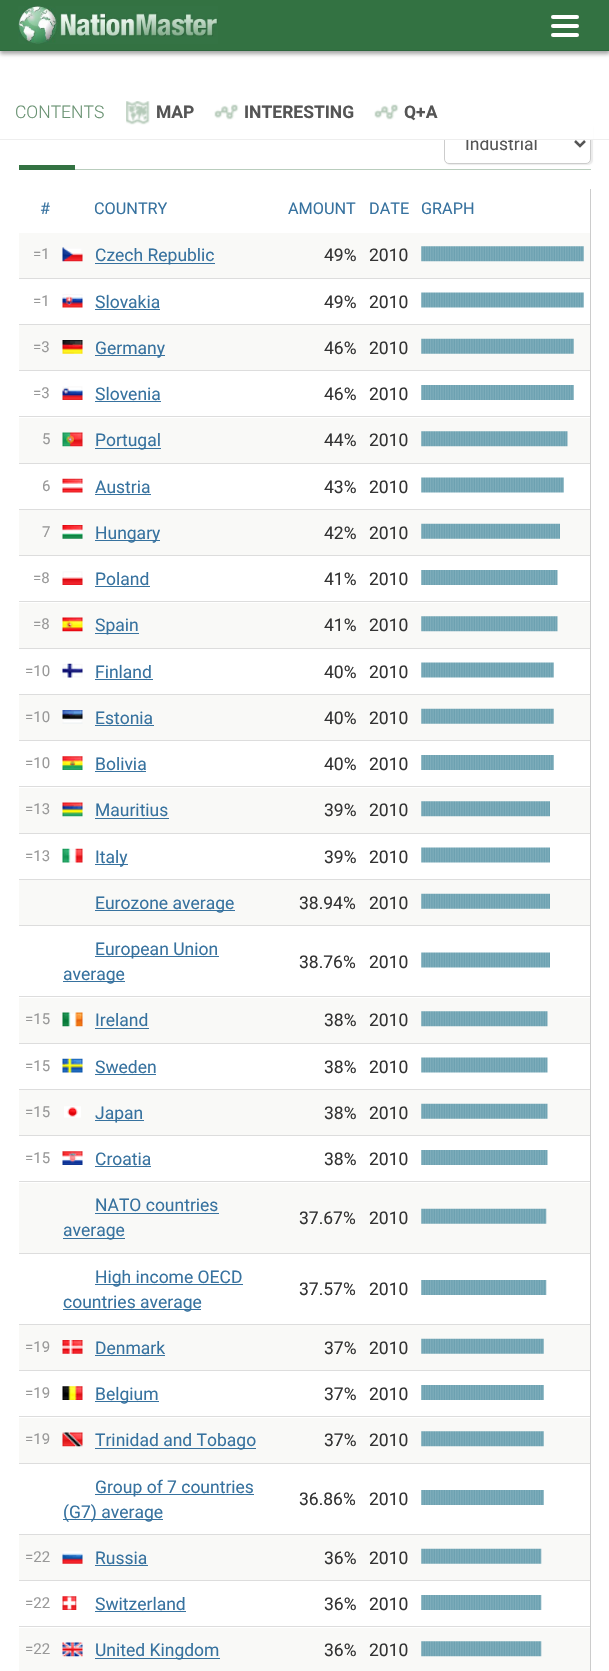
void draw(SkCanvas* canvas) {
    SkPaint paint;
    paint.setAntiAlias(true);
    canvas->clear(0xFFFFFFFF);
    paint.setColor(0x59000000);
    paint.setMaskFilter(SkMaskFilter::MakeBlur(kNormal_SkBlurStyle, 2));
    canvas->drawRect(SkRect::MakeXYWH(0, 3, 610, 51), paint);
    paint.setMaskFilter(nullptr);
    paint.setColor(0xFF337242);
    canvas->drawRect(SkRect::MakeXYWH(0, 0, 609, 50), paint);
    paint.setColor(0xFF2C653D);
    canvas->drawRect(SkRect::MakeXYWH(0, 50, 609, 1), paint);
    canvas->drawImageRect(SkImages::DeferredFromEncodedData(SkData::MakeFromFileName("img1.png")), SkRect::MakeXYWH(18, 6, 200, 38), SkSamplingOptions());
    paint.setColor(0xFFFFFFFF);
    canvas->drawRoundRect(SkRect::MakeXYWH(551, 15, 28, 4), 2, 2, paint);
    canvas->drawRoundRect(SkRect::MakeXYWH(551, 24, 28, 4), 2, 2, paint);
    canvas->drawRoundRect(SkRect::MakeXYWH(551, 33, 28, 4), 2, 2, paint);
    paint.setColor(0x14000000);
    paint.setMaskFilter(SkMaskFilter::MakeBlur(kNormal_SkBlurStyle, 0.5f));
    canvas->drawRoundRect(SkRect::MakeXYWH(445, 125, 148, 40), 5, 5, paint);
    paint.setMaskFilter(nullptr);
    paint.setColor(0xFFFFFFFF);
    canvas->drawRoundRect(SkRect::MakeXYWH(444.5f, 124.5f, 146, 39), 4.5f, 4.5f, paint);
    paint.setStyle(SkPaint::kStroke_Style);
    paint.setStrokeWidth(1);
    paint.setColor(0xFFCCCCCC);
    canvas->drawRoundRect(SkRect::MakeXYWH(444.5f, 124.5f, 146, 39), 4.5f, 4.5f, paint);
    SkFont font1(fontMgr->matchFamilyStyle("Roboto", SkFontStyle::Normal()), 17.5f);
    font1.setSubpixel(true);
    paint.setStyle(SkPaint::kFill_Style);
    paint.setColor(0xFF555555);
    canvas->drawString("Industrial", 465, 150, font1, paint);
    paint.setColor(0xFFFFFFFF);
    canvas->drawRect(SkRect::MakeXYWH(444, 124, 149, 15), paint);
    paint.setColor(0xFFEEEEEE);
    canvas->drawRect(SkRect::MakeXYWH(0, 139, 609, 1), paint);
    SkFont font2(fontMgr->matchFamilyStyle("Roboto", SkFontStyle(300, SkFontStyle::kNormal_Width, SkFontStyle::kUpright_Slant)), 17.5f);
    font2.setSubpixel(true);
    paint.setColor(0xFF699272);
    canvas->drawString("CONTENTS", 15, 118, font2, paint);
    canvas->drawImageRect(SkImages::DeferredFromEncodedData(SkData::MakeFromFileName("img2.png")), SkRect::MakeXYWH(126, 101, 24, 24), SkSamplingOptions());
    SkFont font3(fontMgr->matchFamilyStyle("Roboto", SkFontStyle::Bold()), 17.5f);
    font3.setSubpixel(true);
    paint.setColor(0xFF555555);
    canvas->drawString("MAP", 156, 118, font3, paint);
    canvas->drawImageRect(SkImages::DeferredFromEncodedData(SkData::MakeFromFileName("img3.png")), SkRect::MakeXYWH(214, 104, 25, 16), SkSamplingOptions());
    canvas->drawString("INTERESTING", 244, 118, font3, paint);
    canvas->drawImageRect(SkImages::DeferredFromEncodedData(SkData::MakeFromFileName("img4.png")), SkRect::MakeXYWH(374, 104, 25, 16), SkSamplingOptions());
    canvas->drawString("Q+A", 404, 118, font3, paint);
    paint.setColor(0xFFB9CDBD);
    canvas->drawRect(SkRect::MakeXYWH(75, 169, 516, 1), paint);
    paint.setStyle(SkPaint::kStroke_Style);
    paint.setStrokeWidth(2.5f);
    paint.setColor(0xFF555555);
    canvas->drawPath(SkPathBuilder().moveTo(575, 141).lineTo(580, 146).lineTo(585, 141).detach(), paint);
    paint.setStyle(SkPaint::kFill_Style);
    paint.setColor(0xFF337242);
    canvas->drawRect(SkRect::MakeXYWH(19, 165, 56, 5), paint);
    paint.setColor(0xFFCCCCCC);
    canvas->drawRect(SkRect::MakeXYWH(590, 189, 1, 1482), paint);
    SkFont font4(fontMgr->matchFamilyStyle("Roboto", SkFontStyle::Normal()), 16.25f);
    font4.setSubpixel(true);
    paint.setColor(0xFF37729F);
    canvas->drawString("#", 40, 214, font4, paint);
    canvas->drawString("COUNTRY", 94, 214, font4, paint);
    canvas->drawString("AMOUNT", 288, 214, font4, paint);
    canvas->drawString("DATE", 369, 214, font4, paint);
    canvas->drawString("GRAPH", 421, 214, font4, paint);
    paint.setColor(0xFFF9F9F7);
    canvas->drawRect(SkRect::MakeXYWH(19, 233, 571, 45), paint);
    SkFont font5(fontMgr->matchFamilyStyle("Roboto", SkFontStyle::Normal()), 15);
    font5.setSubpixel(true);
    paint.setColor(0xFF999999);
    canvas->drawString("=1", 33, 259, font5, paint);
    canvas->drawImageRect(SkImages::DeferredFromEncodedData(SkData::MakeFromFileName("img5.png")), SkRect::MakeXYWH(62, 247, 21, 15), SkSamplingOptions());
    paint.setColor(0xFF37729F);
    canvas->drawRect(SkRect::MakeXYWH(95, 263, 120, 1), paint);
    canvas->drawString("Czech Republic", 95, 261, font1, paint);
    paint.setColor(0xFF333333);
    canvas->drawString("49%", 324, 261, font1, paint);
    canvas->drawString("2010", 369, 261, font1, paint);
    canvas->drawImageRect(SkImages::DeferredFromEncodedData(SkData::MakeFromFileName("img6.png")), SkRect::MakeXYWH(421, 246, 163, 16), SkSamplingOptions());
    paint.setColor(0xFFDDDDDD);
    canvas->drawRect(SkRect::MakeXYWH(19, 278, 571, 1), paint);
    canvas->drawImageRect(SkImages::DeferredFromEncodedData(SkData::MakeFromFileName("img7.png")), SkRect::MakeXYWH(421, 292, 163, 16), SkSamplingOptions());
    paint.setColor(0xFF999999);
    canvas->drawString("=1", 33, 306, font5, paint);
    canvas->drawImageRect(SkImages::DeferredFromEncodedData(SkData::MakeFromFileName("img8.png")), SkRect::MakeXYWH(62, 294, 21, 14), SkSamplingOptions());
    paint.setColor(0xFF37729F);
    canvas->drawString("Slovakia", 95, 308, font1, paint);
    canvas->drawRect(SkRect::MakeXYWH(95, 309, 65, 1), paint);
    paint.setColor(0xFF333333);
    canvas->drawString("49%", 324, 308, font1, paint);
    canvas->drawString("2010", 369, 308, font1, paint);
    paint.setColor(0xFFF9F9F7);
    canvas->drawRect(SkRect::MakeXYWH(19, 325, 571, 45), paint);
    paint.setColor(0xFFDDDDDD);
    canvas->drawRect(SkRect::MakeXYWH(19, 324, 571, 1), paint);
    canvas->drawImageRect(SkImages::DeferredFromEncodedData(SkData::MakeFromFileName("img9.png")), SkRect::MakeXYWH(421, 338, 153, 16), SkSamplingOptions());
    paint.setColor(0xFF999999);
    canvas->drawString("=3", 33, 352, font5, paint);
    canvas->drawImageRect(SkImages::DeferredFromEncodedData(SkData::MakeFromFileName("img10.png")), SkRect::MakeXYWH(62, 340, 21, 14), SkSamplingOptions());
    paint.setColor(0xFF37729F);
    canvas->drawRect(SkRect::MakeXYWH(95, 355, 70, 1), paint);
    canvas->drawString("Germany", 95, 354, font1, paint);
    paint.setColor(0xFF333333);
    canvas->drawString("46%", 324, 354, font1, paint);
    canvas->drawString("2010", 369, 354, font1, paint);
    paint.setColor(0xFFDDDDDD);
    canvas->drawRect(SkRect::MakeXYWH(19, 370, 571, 1), paint);
    canvas->drawImageRect(SkImages::DeferredFromEncodedData(SkData::MakeFromFileName("img11.png")), SkRect::MakeXYWH(421, 385, 153, 15), SkSamplingOptions());
    paint.setColor(0xFF999999);
    canvas->drawString("=3", 33, 398, font5, paint);
    canvas->drawImageRect(SkImages::DeferredFromEncodedData(SkData::MakeFromFileName("img12.png")), SkRect::MakeXYWH(62, 386, 21, 14), SkSamplingOptions());
    paint.setColor(0xFF37729F);
    canvas->drawString("Slovenia", 95, 400, font1, paint);
    canvas->drawRect(SkRect::MakeXYWH(95, 401, 66, 1), paint);
    paint.setColor(0xFF333333);
    canvas->drawString("46%", 324, 400, font1, paint);
    canvas->drawString("2010", 369, 400, font1, paint);
    paint.setColor(0xFFF9F9F7);
    canvas->drawRect(SkRect::MakeXYWH(19, 418, 571, 45), paint);
    paint.setColor(0xFFDDDDDD);
    canvas->drawRect(SkRect::MakeXYWH(19, 416, 571, 1), paint);
    canvas->drawImageRect(SkImages::DeferredFromEncodedData(SkData::MakeFromFileName("img13.png")), SkRect::MakeXYWH(421, 431, 147, 16), SkSamplingOptions());
    paint.setColor(0xFF999999);
    canvas->drawString("5", 42, 444, font5, paint);
    canvas->drawImageRect(SkImages::DeferredFromEncodedData(SkData::MakeFromFileName("img14.png")), SkRect::MakeXYWH(62, 432, 21, 15), SkSamplingOptions());
    paint.setColor(0xFF37729F);
    canvas->drawRect(SkRect::MakeXYWH(95, 448, 66, 1), paint);
    canvas->drawString("Portugal", 95, 446, font1, paint);
    paint.setColor(0xFF333333);
    canvas->drawString("44%", 324, 446, font1, paint);
    canvas->drawString("2010", 369, 446, font1, paint);
    paint.setColor(0xFFDDDDDD);
    canvas->drawRect(SkRect::MakeXYWH(19, 463, 571, 1), paint);
    canvas->drawImageRect(SkImages::DeferredFromEncodedData(SkData::MakeFromFileName("img15.png")), SkRect::MakeXYWH(421, 477, 143, 16), SkSamplingOptions());
    paint.setColor(0xFF999999);
    canvas->drawString("6", 42, 491, font5, paint);
    canvas->drawImageRect(SkImages::DeferredFromEncodedData(SkData::MakeFromFileName("img16.png")), SkRect::MakeXYWH(62, 478, 21, 15), SkSamplingOptions());
    paint.setColor(0xFF37729F);
    canvas->drawString("Austria", 95, 493, font1, paint);
    canvas->drawRect(SkRect::MakeXYWH(95, 494, 56, 1), paint);
    paint.setColor(0xFF333333);
    canvas->drawString("43%", 324, 493, font1, paint);
    canvas->drawString("2010", 369, 493, font1, paint);
    paint.setColor(0xFFF9F9F7);
    canvas->drawRect(SkRect::MakeXYWH(19, 510, 571, 45), paint);
    paint.setColor(0xFFDDDDDD);
    canvas->drawRect(SkRect::MakeXYWH(19, 509, 571, 1), paint);
    canvas->drawImageRect(SkImages::DeferredFromEncodedData(SkData::MakeFromFileName("img17.png")), SkRect::MakeXYWH(421, 523, 139, 16), SkSamplingOptions());
    paint.setColor(0xFF999999);
    canvas->drawString("7", 42, 537, font5, paint);
    canvas->drawImageRect(SkImages::DeferredFromEncodedData(SkData::MakeFromFileName("img18.png")), SkRect::MakeXYWH(62, 525, 21, 14), SkSamplingOptions());
    paint.setColor(0xFF37729F);
    canvas->drawRect(SkRect::MakeXYWH(95, 540, 65, 1), paint);
    canvas->drawString("Hungary", 95, 539, font1, paint);
    paint.setColor(0xFF333333);
    canvas->drawString("42%", 324, 539, font1, paint);
    canvas->drawString("2010", 369, 539, font1, paint);
    paint.setColor(0xFFDDDDDD);
    canvas->drawRect(SkRect::MakeXYWH(19, 555, 571, 1), paint);
    canvas->drawImageRect(SkImages::DeferredFromEncodedData(SkData::MakeFromFileName("img19.png")), SkRect::MakeXYWH(421, 570, 137, 15), SkSamplingOptions());
    paint.setColor(0xFF999999);
    canvas->drawString("=8", 33, 583, font5, paint);
    canvas->drawImageRect(SkImages::DeferredFromEncodedData(SkData::MakeFromFileName("img20.png")), SkRect::MakeXYWH(62, 571, 21, 14), SkSamplingOptions());
    paint.setColor(0xFF37729F);
    canvas->drawString("Poland", 95, 585, font1, paint);
    canvas->drawRect(SkRect::MakeXYWH(95, 586, 55, 1), paint);
    paint.setColor(0xFF333333);
    canvas->drawString("41%", 324, 585, font1, paint);
    canvas->drawString("2010", 369, 585, font1, paint);
    paint.setColor(0xFFF9F9F7);
    canvas->drawRect(SkRect::MakeXYWH(19, 603, 571, 45), paint);
    paint.setColor(0xFFDDDDDD);
    canvas->drawRect(SkRect::MakeXYWH(19, 601, 571, 1), paint);
    canvas->drawImageRect(SkImages::DeferredFromEncodedData(SkData::MakeFromFileName("img21.png")), SkRect::MakeXYWH(421, 616, 137, 16), SkSamplingOptions());
    paint.setColor(0xFF999999);
    canvas->drawString("=8", 33, 629, font5, paint);
    canvas->drawImageRect(SkImages::DeferredFromEncodedData(SkData::MakeFromFileName("img22.png")), SkRect::MakeXYWH(62, 617, 21, 15), SkSamplingOptions());
    paint.setColor(0xFF37729F);
    canvas->drawRect(SkRect::MakeXYWH(95, 633, 44, 1), paint);
    canvas->drawString("Spain", 95, 631, font1, paint);
    paint.setColor(0xFF333333);
    canvas->drawString("41%", 324, 631, font1, paint);
    canvas->drawString("2010", 369, 631, font1, paint);
    paint.setColor(0xFFDDDDDD);
    canvas->drawRect(SkRect::MakeXYWH(19, 648, 571, 1), paint);
    canvas->drawImageRect(SkImages::DeferredFromEncodedData(SkData::MakeFromFileName("img23.png")), SkRect::MakeXYWH(421, 662, 133, 16), SkSamplingOptions());
    paint.setColor(0xFF999999);
    canvas->drawString("=10", 25, 676, font5, paint);
    canvas->drawImageRect(SkImages::DeferredFromEncodedData(SkData::MakeFromFileName("img24.png")), SkRect::MakeXYWH(62, 663, 21, 15), SkSamplingOptions());
    paint.setColor(0xFF37729F);
    canvas->drawString("Finland", 95, 678, font1, paint);
    canvas->drawRect(SkRect::MakeXYWH(95, 679, 58, 1), paint);
    paint.setColor(0xFF333333);
    canvas->drawString("40%", 324, 678, font1, paint);
    canvas->drawString("2010", 369, 678, font1, paint);
    paint.setColor(0xFFF9F9F7);
    canvas->drawRect(SkRect::MakeXYWH(19, 695, 571, 45), paint);
    paint.setColor(0xFFDDDDDD);
    canvas->drawRect(SkRect::MakeXYWH(19, 694, 571, 1), paint);
    canvas->drawImageRect(SkImages::DeferredFromEncodedData(SkData::MakeFromFileName("img25.png")), SkRect::MakeXYWH(421, 708, 133, 16), SkSamplingOptions());
    paint.setColor(0xFF999999);
    canvas->drawString("=10", 25, 722, font5, paint);
    canvas->drawImageRect(SkImages::DeferredFromEncodedData(SkData::MakeFromFileName("img26.png")), SkRect::MakeXYWH(62, 710, 21, 14), SkSamplingOptions());
    paint.setColor(0xFF37729F);
    canvas->drawString("Estonia", 95, 724, font1, paint);
    canvas->drawRect(SkRect::MakeXYWH(95, 725, 59, 1), paint);
    paint.setColor(0xFF333333);
    canvas->drawString("40%", 324, 724, font1, paint);
    canvas->drawString("2010", 369, 724, font1, paint);
    paint.setColor(0xFFDDDDDD);
    canvas->drawRect(SkRect::MakeXYWH(19, 740, 571, 1), paint);
    canvas->drawImageRect(SkImages::DeferredFromEncodedData(SkData::MakeFromFileName("img27.png")), SkRect::MakeXYWH(421, 755, 133, 15), SkSamplingOptions());
    paint.setColor(0xFF999999);
    canvas->drawString("=10", 25, 768, font5, paint);
    canvas->drawImageRect(SkImages::DeferredFromEncodedData(SkData::MakeFromFileName("img28.png")), SkRect::MakeXYWH(62, 756, 21, 14), SkSamplingOptions());
    paint.setColor(0xFF37729F);
    canvas->drawString("Bolivia", 95, 770, font1, paint);
    canvas->drawRect(SkRect::MakeXYWH(95, 771, 51, 1), paint);
    paint.setColor(0xFF333333);
    canvas->drawString("40%", 324, 770, font1, paint);
    canvas->drawString("2010", 369, 770, font1, paint);
    paint.setColor(0xFFF9F9F7);
    canvas->drawRect(SkRect::MakeXYWH(19, 788, 571, 45), paint);
    paint.setColor(0xFFDDDDDD);
    canvas->drawRect(SkRect::MakeXYWH(19, 786, 571, 1), paint);
    canvas->drawImageRect(SkImages::DeferredFromEncodedData(SkData::MakeFromFileName("img29.png")), SkRect::MakeXYWH(421, 801, 129, 16), SkSamplingOptions());
    paint.setColor(0xFF999999);
    canvas->drawString("=13", 25, 814, font5, paint);
    canvas->drawImageRect(SkImages::DeferredFromEncodedData(SkData::MakeFromFileName("img30.png")), SkRect::MakeXYWH(62, 802, 21, 15), SkSamplingOptions());
    paint.setColor(0xFF37729F);
    canvas->drawString("Mauritius", 95, 816, font1, paint);
    canvas->drawRect(SkRect::MakeXYWH(95, 818, 74, 1), paint);
    paint.setColor(0xFF333333);
    canvas->drawString("39%", 324, 816, font1, paint);
    canvas->drawString("2010", 369, 816, font1, paint);
    paint.setColor(0xFFDDDDDD);
    canvas->drawRect(SkRect::MakeXYWH(19, 833, 571, 1), paint);
    canvas->drawImageRect(SkImages::DeferredFromEncodedData(SkData::MakeFromFileName("img31.png")), SkRect::MakeXYWH(421, 847, 129, 16), SkSamplingOptions());
    paint.setColor(0xFF999999);
    canvas->drawString("=13", 25, 861, font5, paint);
    canvas->drawImageRect(SkImages::DeferredFromEncodedData(SkData::MakeFromFileName("img32.png")), SkRect::MakeXYWH(62, 848, 21, 15), SkSamplingOptions());
    paint.setColor(0xFF37729F);
    canvas->drawRect(SkRect::MakeXYWH(95, 864, 33, 1), paint);
    canvas->drawString("Italy", 95, 863, font1, paint);
    paint.setColor(0xFF333333);
    canvas->drawString("39%", 324, 863, font1, paint);
    canvas->drawString("2010", 369, 863, font1, paint);
    paint.setColor(0xFFF9F9F7);
    canvas->drawRect(SkRect::MakeXYWH(19, 880, 571, 45), paint);
    paint.setColor(0xFFDDDDDD);
    canvas->drawRect(SkRect::MakeXYWH(19, 879, 571, 1), paint);
    canvas->drawImageRect(SkImages::DeferredFromEncodedData(SkData::MakeFromFileName("img33.png")), SkRect::MakeXYWH(421, 893, 129, 16), SkSamplingOptions());
    paint.setColor(0xFF37729F);
    canvas->drawRect(SkRect::MakeXYWH(95, 910, 140, 1), paint);
    canvas->drawString("Eurozone average", 95, 909, font1, paint);
    paint.setColor(0xFF333333);
    canvas->drawString("38.94%", 299, 909, font1, paint);
    canvas->drawString("2010", 369, 909, font1, paint);
    paint.setColor(0xFFDDDDDD);
    canvas->drawRect(SkRect::MakeXYWH(19, 925, 571, 1), paint);
    canvas->drawImageRect(SkImages::DeferredFromEncodedData(SkData::MakeFromFileName("img31.png")), SkRect::MakeXYWH(421, 952, 129, 16), SkSamplingOptions());
    paint.setColor(0xFF37729F);
    canvas->drawRect(SkRect::MakeXYWH(95, 956, 124, 1), paint);
    canvas->drawString("European Union", 95, 955, font1, paint);
    canvas->drawRect(SkRect::MakeXYWH(63, 981, 62, 1), paint);
    canvas->drawString("average", 63, 980, font1, paint);
    paint.setColor(0xFF333333);
    canvas->drawString("38.76%", 299, 968, font1, paint);
    canvas->drawString("2010", 369, 968, font1, paint);
    paint.setColor(0xFFF9F9F7);
    canvas->drawRect(SkRect::MakeXYWH(19, 998, 571, 45), paint);
    paint.setColor(0xFFDDDDDD);
    canvas->drawRect(SkRect::MakeXYWH(19, 996, 571, 1), paint);
    canvas->drawImageRect(SkImages::DeferredFromEncodedData(SkData::MakeFromFileName("img34.png")), SkRect::MakeXYWH(421, 1011, 127, 16), SkSamplingOptions());
    paint.setColor(0xFF999999);
    canvas->drawString("=15", 25, 1024, font5, paint);
    canvas->drawImageRect(SkImages::DeferredFromEncodedData(SkData::MakeFromFileName("img35.png")), SkRect::MakeXYWH(62, 1012, 21, 15), SkSamplingOptions());
    paint.setColor(0xFF37729F);
    canvas->drawString("Ireland", 95, 1026, font1, paint);
    canvas->drawRect(SkRect::MakeXYWH(95, 1028, 54, 1), paint);
    paint.setColor(0xFF333333);
    canvas->drawString("38%", 324, 1026, font1, paint);
    canvas->drawString("2010", 369, 1026, font1, paint);
    paint.setColor(0xFFDDDDDD);
    canvas->drawRect(SkRect::MakeXYWH(19, 1043, 571, 1), paint);
    canvas->drawImageRect(SkImages::DeferredFromEncodedData(SkData::MakeFromFileName("img36.png")), SkRect::MakeXYWH(421, 1057, 127, 16), SkSamplingOptions());
    paint.setColor(0xFF999999);
    canvas->drawString("=15", 25, 1071, font5, paint);
    canvas->drawImageRect(SkImages::DeferredFromEncodedData(SkData::MakeFromFileName("img37.png")), SkRect::MakeXYWH(62, 1058, 21, 15), SkSamplingOptions());
    paint.setColor(0xFF37729F);
    canvas->drawString("Sweden", 95, 1073, font1, paint);
    canvas->drawRect(SkRect::MakeXYWH(95, 1074, 61, 1), paint);
    paint.setColor(0xFF333333);
    canvas->drawString("38%", 324, 1073, font1, paint);
    canvas->drawString("2010", 369, 1073, font1, paint);
    paint.setColor(0xFFF9F9F7);
    canvas->drawRect(SkRect::MakeXYWH(19, 1090, 571, 45), paint);
    paint.setColor(0xFFDDDDDD);
    canvas->drawRect(SkRect::MakeXYWH(19, 1089, 571, 1), paint);
    canvas->drawImageRect(SkImages::DeferredFromEncodedData(SkData::MakeFromFileName("img38.png")), SkRect::MakeXYWH(421, 1103, 127, 16), SkSamplingOptions());
    paint.setColor(0xFF999999);
    canvas->drawString("=15", 25, 1117, font5, paint);
    canvas->drawImageRect(SkImages::DeferredFromEncodedData(SkData::MakeFromFileName("img39.png")), SkRect::MakeXYWH(64, 1106, 17, 12), SkSamplingOptions());
    paint.setColor(0xFF37729F);
    canvas->drawRect(SkRect::MakeXYWH(95, 1120, 49, 1), paint);
    canvas->drawString("Japan", 95, 1119, font1, paint);
    paint.setColor(0xFF333333);
    canvas->drawString("38%", 324, 1119, font1, paint);
    canvas->drawString("2010", 369, 1119, font1, paint);
    paint.setColor(0xFFDDDDDD);
    canvas->drawRect(SkRect::MakeXYWH(19, 1135, 571, 1), paint);
    canvas->drawImageRect(SkImages::DeferredFromEncodedData(SkData::MakeFromFileName("img40.png")), SkRect::MakeXYWH(421, 1150, 127, 15), SkSamplingOptions());
    paint.setColor(0xFF999999);
    canvas->drawString("=15", 25, 1163, font5, paint);
    canvas->drawImageRect(SkImages::DeferredFromEncodedData(SkData::MakeFromFileName("img41.png")), SkRect::MakeXYWH(62, 1151, 21, 14), SkSamplingOptions());
    paint.setColor(0xFF37729F);
    canvas->drawString("Croatia", 95, 1165, font1, paint);
    canvas->drawRect(SkRect::MakeXYWH(95, 1166, 56, 1), paint);
    paint.setColor(0xFF333333);
    canvas->drawString("38%", 324, 1165, font1, paint);
    canvas->drawString("2010", 369, 1165, font1, paint);
    paint.setColor(0xFFF9F9F7);
    canvas->drawRect(SkRect::MakeXYWH(19, 1183, 571, 70), paint);
    paint.setColor(0xFFDDDDDD);
    canvas->drawRect(SkRect::MakeXYWH(19, 1181, 571, 1), paint);
    canvas->drawImageRect(SkImages::DeferredFromEncodedData(SkData::MakeFromFileName("img42.png")), SkRect::MakeXYWH(421, 1208, 126, 16), SkSamplingOptions());
    paint.setColor(0xFF37729F);
    canvas->drawString("NATO countries", 95, 1211, font1, paint);
    canvas->drawRect(SkRect::MakeXYWH(95, 1213, 124, 1), paint);
    canvas->drawRect(SkRect::MakeXYWH(63, 1238, 62, 1), paint);
    canvas->drawString("average", 63, 1236, font1, paint);
    paint.setColor(0xFF333333);
    canvas->drawString("37.67%", 299, 1224, font1, paint);
    canvas->drawString("2010", 369, 1224, font1, paint);
    paint.setColor(0xFFDDDDDD);
    canvas->drawRect(SkRect::MakeXYWH(19, 1253, 571, 1), paint);
    canvas->drawImageRect(SkImages::DeferredFromEncodedData(SkData::MakeFromFileName("img43.png")), SkRect::MakeXYWH(421, 1280, 126, 15), SkSamplingOptions());
    paint.setColor(0xFF37729F);
    canvas->drawRect(SkRect::MakeXYWH(95, 1284, 148, 1), paint);
    canvas->drawString("High income OECD", 95, 1283, font1, paint);
    canvas->drawRect(SkRect::MakeXYWH(63, 1309, 138, 1), paint);
    canvas->drawString("countries average", 63, 1308, font1, paint);
    paint.setColor(0xFF333333);
    canvas->drawString("37.57%", 299, 1295, font1, paint);
    canvas->drawString("2010", 369, 1295, font1, paint);
    paint.setColor(0xFFF9F9F7);
    canvas->drawRect(SkRect::MakeXYWH(19, 1325, 571, 45), paint);
    paint.setColor(0xFFDDDDDD);
    canvas->drawRect(SkRect::MakeXYWH(19, 1324, 571, 1), paint);
    canvas->drawImageRect(SkImages::DeferredFromEncodedData(SkData::MakeFromFileName("img44.png")), SkRect::MakeXYWH(421, 1338, 123, 16), SkSamplingOptions());
    paint.setColor(0xFF999999);
    canvas->drawString("=19", 25, 1352, font5, paint);
    canvas->drawImageRect(SkImages::DeferredFromEncodedData(SkData::MakeFromFileName("img45.png")), SkRect::MakeXYWH(62, 1340, 21, 14), SkSamplingOptions());
    paint.setColor(0xFF37729F);
    canvas->drawString("Denmark", 95, 1354, font1, paint);
    canvas->drawRect(SkRect::MakeXYWH(95, 1355, 70, 1), paint);
    paint.setColor(0xFF333333);
    canvas->drawString("37%", 324, 1354, font1, paint);
    canvas->drawString("2010", 369, 1354, font1, paint);
    paint.setColor(0xFFDDDDDD);
    canvas->drawRect(SkRect::MakeXYWH(19, 1370, 571, 1), paint);
    canvas->drawImageRect(SkImages::DeferredFromEncodedData(SkData::MakeFromFileName("img46.png")), SkRect::MakeXYWH(421, 1385, 123, 15), SkSamplingOptions());
    paint.setColor(0xFF999999);
    canvas->drawString("=19", 25, 1398, font5, paint);
    canvas->drawImageRect(SkImages::DeferredFromEncodedData(SkData::MakeFromFileName("img47.png")), SkRect::MakeXYWH(62, 1386, 21, 14), SkSamplingOptions());
    paint.setColor(0xFF37729F);
    canvas->drawRect(SkRect::MakeXYWH(95, 1401, 64, 1), paint);
    canvas->drawString("Belgium", 95, 1400, font1, paint);
    paint.setColor(0xFF333333);
    canvas->drawString("37%", 324, 1400, font1, paint);
    canvas->drawString("2010", 369, 1400, font1, paint);
    paint.setColor(0xFFF9F9F7);
    canvas->drawRect(SkRect::MakeXYWH(19, 1418, 571, 45), paint);
    paint.setColor(0xFFDDDDDD);
    canvas->drawRect(SkRect::MakeXYWH(19, 1416, 571, 1), paint);
    canvas->drawImageRect(SkImages::DeferredFromEncodedData(SkData::MakeFromFileName("img48.png")), SkRect::MakeXYWH(421, 1431, 123, 16), SkSamplingOptions());
    paint.setColor(0xFF999999);
    canvas->drawString("=19", 25, 1444, font5, paint);
    canvas->drawImageRect(SkImages::DeferredFromEncodedData(SkData::MakeFromFileName("img49.png")), SkRect::MakeXYWH(62, 1432, 21, 15), SkSamplingOptions());
    paint.setColor(0xFF37729F);
    canvas->drawRect(SkRect::MakeXYWH(95, 1448, 161, 1), paint);
    canvas->drawString("Trinidad and Tobago", 95, 1446, font1, paint);
    paint.setColor(0xFF333333);
    canvas->drawString("37%", 324, 1446, font1, paint);
    canvas->drawString("2010", 369, 1446, font1, paint);
    paint.setColor(0xFFDDDDDD);
    canvas->drawRect(SkRect::MakeXYWH(19, 1463, 571, 1), paint);
    canvas->drawImageRect(SkImages::DeferredFromEncodedData(SkData::MakeFromFileName("img46.png")), SkRect::MakeXYWH(421, 1490, 123, 15), SkSamplingOptions());
    paint.setColor(0xFF37729F);
    canvas->drawRect(SkRect::MakeXYWH(95, 1494, 159, 1), paint);
    canvas->drawString("Group of 7 countries", 95, 1493, font1, paint);
    canvas->drawRect(SkRect::MakeXYWH(63, 1519, 100, 1), paint);
    canvas->drawString("(G7) average", 63, 1518, font1, paint);
    paint.setColor(0xFF333333);
    canvas->drawString("36.86%", 299, 1505, font1, paint);
    canvas->drawString("2010", 369, 1505, font1, paint);
    paint.setColor(0xFFF9F9F7);
    canvas->drawRect(SkRect::MakeXYWH(19, 1535, 571, 45), paint);
    paint.setColor(0xFFDDDDDD);
    canvas->drawRect(SkRect::MakeXYWH(19, 1534, 571, 1), paint);
    canvas->drawImageRect(SkImages::DeferredFromEncodedData(SkData::MakeFromFileName("img50.png")), SkRect::MakeXYWH(421, 1548, 121, 16), SkSamplingOptions());
    paint.setColor(0xFF999999);
    canvas->drawString("=22", 25, 1562, font5, paint);
    canvas->drawImageRect(SkImages::DeferredFromEncodedData(SkData::MakeFromFileName("img51.png")), SkRect::MakeXYWH(62, 1551, 21, 13), SkSamplingOptions());
    paint.setColor(0xFF37729F);
    canvas->drawString("Russia", 95, 1564, font1, paint);
    canvas->drawRect(SkRect::MakeXYWH(95, 1565, 53, 1), paint);
    paint.setColor(0xFF333333);
    canvas->drawString("36%", 324, 1564, font1, paint);
    canvas->drawString("2010", 369, 1564, font1, paint);
    paint.setColor(0xFFDDDDDD);
    canvas->drawRect(SkRect::MakeXYWH(19, 1580, 571, 1), paint);
    canvas->drawImageRect(SkImages::DeferredFromEncodedData(SkData::MakeFromFileName("img52.png")), SkRect::MakeXYWH(421, 1595, 121, 15), SkSamplingOptions());
    paint.setColor(0xFF999999);
    canvas->drawString("=22", 25, 1608, font5, paint);
    canvas->drawImageRect(SkImages::DeferredFromEncodedData(SkData::MakeFromFileName("img53.png")), SkRect::MakeXYWH(62, 1596, 15, 14), SkSamplingOptions());
    paint.setColor(0xFF37729F);
    canvas->drawString("Switzerland", 95, 1610, font1, paint);
    canvas->drawRect(SkRect::MakeXYWH(95, 1611, 91, 1), paint);
    paint.setColor(0xFF333333);
    canvas->drawString("36%", 324, 1610, font1, paint);
    canvas->drawString("2010", 369, 1610, font1, paint);
    paint.setColor(0xFFF9F9F7);
    canvas->drawRect(SkRect::MakeXYWH(19, 1628, 571, 43), paint);
    paint.setColor(0xFFDDDDDD);
    canvas->drawRect(SkRect::MakeXYWH(19, 1626, 571, 1), paint);
    canvas->drawImageRect(SkImages::DeferredFromEncodedData(SkData::MakeFromFileName("img54.png")), SkRect::MakeXYWH(421, 1641, 121, 16), SkSamplingOptions());
    paint.setColor(0xFF999999);
    canvas->drawString("=22", 25, 1654, font5, paint);
    canvas->drawImageRect(SkImages::DeferredFromEncodedData(SkData::MakeFromFileName("img55.png")), SkRect::MakeXYWH(62, 1642, 21, 15), SkSamplingOptions());
    paint.setColor(0xFF37729F);
    canvas->drawRect(SkRect::MakeXYWH(95, 1658, 125, 1), paint);
    canvas->drawString("United Kingdom", 95, 1656, font1, paint);
    paint.setColor(0xFF333333);
    canvas->drawString("36%", 324, 1656, font1, paint);
    canvas->drawString("2010", 369, 1656, font1, paint);
}
